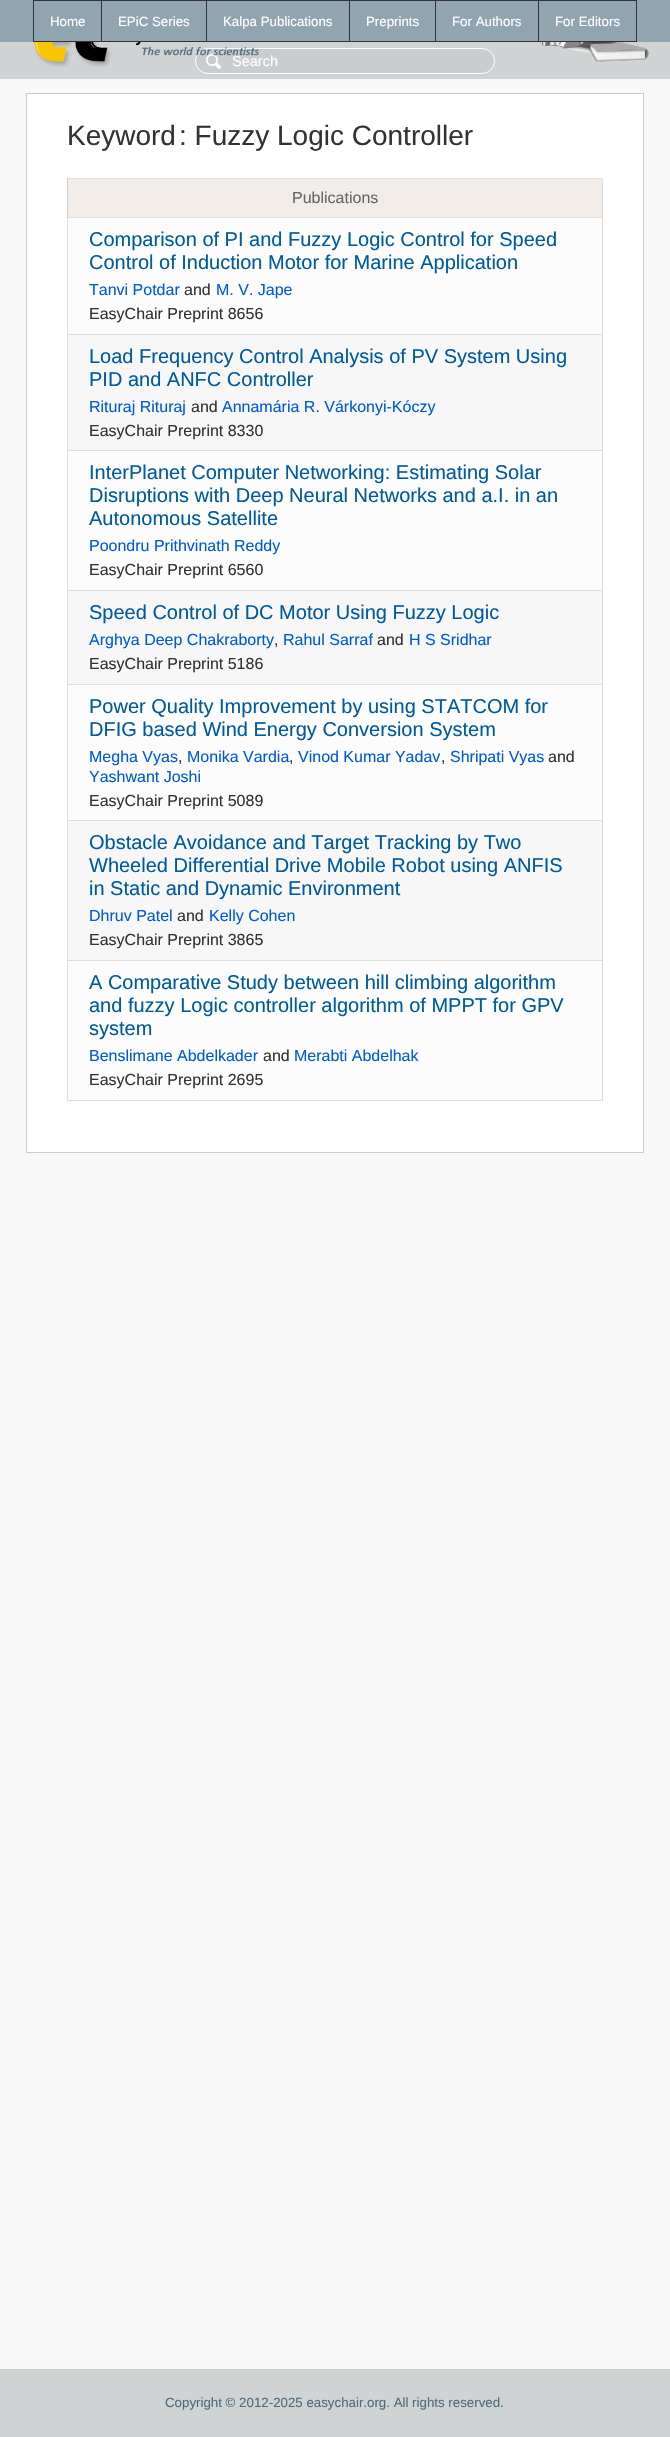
void draw(SkCanvas* canvas) {
    SkPaint paint;
    paint.setAntiAlias(true);
    canvas->clear(0xFF90A5B0);
    paint.setColor(0xFF333333);
    canvas->drawRect(SkRect::MakeXYWH(538, 0, 99, 1), paint);
    canvas->drawRect(SkRect::MakeXYWH(636, 0, 1, 42), paint);
    canvas->drawRect(SkRect::MakeXYWH(538, 41, 99, 1), paint);
    canvas->drawRect(SkRect::MakeXYWH(538, 0, 1, 42), paint);
    canvas->drawRect(SkRect::MakeXYWH(435, 0, 104, 1), paint);
    canvas->drawRect(SkRect::MakeXYWH(435, 41, 104, 1), paint);
    canvas->drawRect(SkRect::MakeXYWH(435, 0, 1, 42), paint);
    canvas->drawRect(SkRect::MakeXYWH(349, 0, 87, 1), paint);
    canvas->drawRect(SkRect::MakeXYWH(349, 41, 87, 1), paint);
    canvas->drawRect(SkRect::MakeXYWH(349, 0, 1, 42), paint);
    canvas->drawRect(SkRect::MakeXYWH(206, 0, 144, 1), paint);
    canvas->drawRect(SkRect::MakeXYWH(206, 41, 144, 1), paint);
    canvas->drawRect(SkRect::MakeXYWH(206, 0, 1, 42), paint);
    canvas->drawRect(SkRect::MakeXYWH(101, 0, 106, 1), paint);
    canvas->drawRect(SkRect::MakeXYWH(101, 41, 106, 1), paint);
    canvas->drawRect(SkRect::MakeXYWH(101, 0, 1, 42), paint);
    canvas->drawRect(SkRect::MakeXYWH(33, 0, 69, 1), paint);
    canvas->drawRect(SkRect::MakeXYWH(33, 41, 69, 1), paint);
    canvas->drawRect(SkRect::MakeXYWH(33, 0, 1, 42), paint);
    SkFont font1(fontMgr->matchFamilyStyle("Liberation Sans", SkFontStyle::Normal()), 13.3f);
    font1.setSubpixel(true);
    paint.setColor(0xFFFFFFFF);
    canvas->drawString("Home", 50, 26, font1, paint);
    canvas->drawString("EPiC Series", 118, 26, font1, paint);
    canvas->drawString("Kalpa Publications", 223, 26, font1, paint);
    canvas->drawString("Preprints", 366, 26, font1, paint);
    canvas->drawString("For Authors", 452, 26, font1, paint);
    canvas->drawString("For Editors", 555, 26, font1, paint);
    paint.setColor(0xFFD0D3D4);
    canvas->drawRect(SkRect::MakeXYWH(0, 43, 669, 35), paint);
    canvas->drawRect(SkRect::MakeXYWH(0, 42, 670, 1), paint);
    paint.setColor(0xFFC9CDD0);
    canvas->drawRoundRect(SkRect::MakeXYWH(195, 48, 300, 26), 13, 13, paint);
    canvas->drawImageRect(SkImages::DeferredFromEncodedData(SkData::MakeFromFileName("img3.png")), SkRect::MakeXYWH(206, 54, 15, 15), SkSamplingOptions());
    paint.setStyle(SkPaint::kStroke_Style);
    paint.setStrokeWidth(1);
    paint.setColor(0xFFFFFFFF);
    canvas->drawRoundRect(SkRect::MakeXYWH(195.5f, 48.5f, 299, 25), 12.5f, 12.5f, paint);
    SkFont font2(fontMgr->matchFamilyStyle("Liberation Sans", SkFontStyle::Normal()), 14.5f);
    font2.setSubpixel(true);
    paint.setStyle(SkPaint::kFill_Style);
    canvas->drawString("Search", 232, 66, font2, paint);
    canvas->drawImageRect(SkImages::DeferredFromEncodedData(SkData::MakeFromFileName("img1.png")), SkRect::MakeXYWH(34, 42, 225, 25), SkSamplingOptions());
    canvas->drawImageRect(SkImages::DeferredFromEncodedData(SkData::MakeFromFileName("img2.png")), SkRect::MakeXYWH(542, 42, 107, 20), SkSamplingOptions());
    paint.setColor(0xFFD0D3D4);
    canvas->drawRect(SkRect::MakeXYWH(669, 42, 1, 37), paint);
    canvas->drawRect(SkRect::MakeXYWH(0, 78, 670, 1), paint);
    paint.setColor(0xFFF8F8F8);
    canvas->drawRect(SkRect::MakeXYWH(0, 79, 670, 2290), paint);
    paint.setColor(0xFFFFFFFF);
    canvas->drawRect(SkRect::MakeXYWH(26.5f, 93.5f, 617, 1059), paint);
    paint.setStyle(SkPaint::kStroke_Style);
    paint.setColor(0xFFCCCCCC);
    canvas->drawRect(SkRect::MakeXYWH(26.5f, 93.5f, 617, 1059), paint);
    SkFont font3(fontMgr->matchFamilyStyle("Liberation Sans", SkFontStyle::Normal()), 28);
    font3.setSubpixel(true);
    paint.setStyle(SkPaint::kFill_Style);
    paint.setColor(0xFF333333);
    canvas->drawString("Keyword", 67, 145, font3, paint);
    canvas->drawString(": Fuzzy Logic Controller", 179, 145, font3, paint);
    paint.setColor(0xFFDEDEDE);
    canvas->drawRect(SkRect::MakeXYWH(67, 178, 536, 1), paint);
    canvas->drawRect(SkRect::MakeXYWH(602, 178, 1, 923), paint);
    canvas->drawRect(SkRect::MakeXYWH(67, 1100, 536, 1), paint);
    canvas->drawRect(SkRect::MakeXYWH(67, 218, 1, 883), paint);
    paint.setColor(0xFFF2EDE9);
    canvas->drawRect(SkRect::MakeXYWH(68, 179, 534, 38), paint);
    paint.setColor(0xFFDEDEDE);
    canvas->drawRect(SkRect::MakeXYWH(67, 217, 536, 1), paint);
    paint.setColor(0xFFCCCCCC);
    canvas->drawRect(SkRect::MakeXYWH(67, 178, 1, 40), paint);
    SkFont font4(fontMgr->matchFamilyStyle("Liberation Sans", SkFontStyle::Normal()), 16);
    font4.setSubpixel(true);
    paint.setColor(0xFF666666);
    canvas->drawString("Publications", 292, 203, font4, paint);
    paint.setColor(0xFFFCFCFC);
    canvas->drawRect(SkRect::MakeXYWH(68, 218, 534, 116), paint);
    paint.setColor(0xFFDEDEDE);
    canvas->drawRect(SkRect::MakeXYWH(67, 334, 536, 1), paint);
    SkFont font5(fontMgr->matchFamilyStyle("Liberation Sans", SkFontStyle::Normal()), 20);
    font5.setSubpixel(true);
    paint.setColor(0xFF005A9F);
    canvas->drawString("Comparison of PI and Fuzzy Logic Control for Speed", 89, 246, font5, paint);
    canvas->drawString("Control of Induction Motor for Marine Application", 89, 269, font5, paint);
    paint.setColor(0xFF0059DB);
    canvas->drawString("Tanvi Potdar", 89, 295, font4, paint);
    paint.setColor(0xFF333333);
    canvas->drawString("and", 184, 295, font4, paint);
    paint.setColor(0xFF0059DB);
    canvas->drawString("M. V. Jape", 216, 295, font4, paint);
    paint.setColor(0xFF333333);
    canvas->drawString("EasyChair Preprint 8656", 89, 319, font4, paint);
    paint.setColor(0xFFF7F7F7);
    canvas->drawRect(SkRect::MakeXYWH(68, 335, 534, 115), paint);
    paint.setColor(0xFFDEDEDE);
    canvas->drawRect(SkRect::MakeXYWH(67, 450, 536, 1), paint);
    paint.setColor(0xFF005A9F);
    canvas->drawString("Load Frequency Control Analysis of PV System Using", 89, 363, font5, paint);
    canvas->drawString("PID and ANFC Controller", 89, 386, font5, paint);
    paint.setColor(0xFF0059DB);
    canvas->drawString("Rituraj Rituraj", 89, 412, font4, paint);
    paint.setColor(0xFF333333);
    canvas->drawString("and", 191, 412, font4, paint);
    paint.setColor(0xFF0059DB);
    canvas->drawString("Annamária R. Várkonyi-Kóczy", 222, 412, font4, paint);
    paint.setColor(0xFF333333);
    canvas->drawString("EasyChair Preprint 8330", 89, 436, font4, paint);
    paint.setColor(0xFFFCFCFC);
    canvas->drawRect(SkRect::MakeXYWH(68, 451, 534, 139), paint);
    paint.setColor(0xFFDEDEDE);
    canvas->drawRect(SkRect::MakeXYWH(67, 590, 536, 1), paint);
    paint.setColor(0xFF005A9F);
    canvas->drawString("InterPlanet Computer Networking: Estimating Solar", 89, 479, font5, paint);
    canvas->drawString("Disruptions with Deep Neural Networks and a.I. in an", 89, 502, font5, paint);
    canvas->drawString("Autonomous Satellite", 89, 525, font5, paint);
    paint.setColor(0xFF0059DB);
    canvas->drawString("Poondru Prithvinath Reddy", 89, 551, font4, paint);
    paint.setColor(0xFF333333);
    canvas->drawString("EasyChair Preprint 6560", 89, 575, font4, paint);
    paint.setColor(0xFFF7F7F7);
    canvas->drawRect(SkRect::MakeXYWH(68, 591, 534, 93), paint);
    paint.setColor(0xFFDEDEDE);
    canvas->drawRect(SkRect::MakeXYWH(67, 684, 536, 1), paint);
    paint.setColor(0xFF005A9F);
    canvas->drawString("Speed Control of DC Motor Using Fuzzy Logic", 89, 619, font5, paint);
    paint.setColor(0xFF0059DB);
    canvas->drawString("Arghya Deep Chakraborty", 89, 645, font4, paint);
    paint.setColor(0xFF333333);
    canvas->drawString(",", 274, 645, font4, paint);
    paint.setColor(0xFF0059DB);
    canvas->drawString("Rahul Sarraf", 283, 645, font4, paint);
    paint.setColor(0xFF333333);
    canvas->drawString("and", 377, 645, font4, paint);
    paint.setColor(0xFF0059DB);
    canvas->drawString("H S Sridhar", 409, 645, font4, paint);
    paint.setColor(0xFF333333);
    canvas->drawString("EasyChair Preprint 5186", 89, 669, font4, paint);
    paint.setColor(0xFFFCFCFC);
    canvas->drawRect(SkRect::MakeXYWH(68, 685, 534, 135), paint);
    paint.setColor(0xFFDEDEDE);
    canvas->drawRect(SkRect::MakeXYWH(67, 820, 536, 1), paint);
    paint.setColor(0xFF005A9F);
    canvas->drawString("Power Quality Improvement by using STATCOM for", 89, 713, font5, paint);
    canvas->drawString("DFIG based Wind Energy Conversion System", 89, 736, font5, paint);
    paint.setColor(0xFF0059DB);
    canvas->drawString("Megha Vyas", 89, 762, font4, paint);
    paint.setColor(0xFF333333);
    canvas->drawString(",", 178, 762, font4, paint);
    paint.setColor(0xFF0059DB);
    canvas->drawString("Monika Vardia", 187, 762, font4, paint);
    paint.setColor(0xFF333333);
    canvas->drawString(",", 289, 762, font4, paint);
    paint.setColor(0xFF0059DB);
    canvas->drawString("Vinod Kumar Yadav", 298, 762, font4, paint);
    paint.setColor(0xFF333333);
    canvas->drawString(",", 441, 762, font4, paint);
    paint.setColor(0xFF0059DB);
    canvas->drawString("Shripati Vyas", 450, 762, font4, paint);
    paint.setColor(0xFF333333);
    canvas->drawString("and", 548, 762, font4, paint);
    paint.setColor(0xFF0059DB);
    canvas->drawString("Yashwant Joshi", 89, 782, font4, paint);
    paint.setColor(0xFF333333);
    canvas->drawString("EasyChair Preprint 5089", 89, 806, font4, paint);
    paint.setColor(0xFFF7F7F7);
    canvas->drawRect(SkRect::MakeXYWH(68, 821, 534, 139), paint);
    paint.setColor(0xFFDEDEDE);
    canvas->drawRect(SkRect::MakeXYWH(67, 960, 536, 1), paint);
    paint.setColor(0xFF005A9F);
    canvas->drawString("Obstacle Avoidance and Target Tracking by Two", 89, 849, font5, paint);
    canvas->drawString("Wheeled Differential Drive Mobile Robot using ANFIS", 89, 872, font5, paint);
    canvas->drawString("in Static and Dynamic Environment", 89, 895, font5, paint);
    paint.setColor(0xFF0059DB);
    canvas->drawString("Dhruv Patel", 89, 921, font4, paint);
    paint.setColor(0xFF333333);
    canvas->drawString("and", 177, 921, font4, paint);
    paint.setColor(0xFF0059DB);
    canvas->drawString("Kelly Cohen", 209, 921, font4, paint);
    paint.setColor(0xFF333333);
    canvas->drawString("EasyChair Preprint 3865", 89, 945, font4, paint);
    paint.setColor(0xFFFCFCFC);
    canvas->drawRect(SkRect::MakeXYWH(68, 961, 534, 139), paint);
    paint.setColor(0xFF005A9F);
    canvas->drawString("A Comparative Study between hill climbing algorithm", 89, 989, font5, paint);
    canvas->drawString("and fuzzy Logic controller algorithm of MPPT for GPV", 89, 1012, font5, paint);
    canvas->drawString("system", 89, 1035, font5, paint);
    paint.setColor(0xFF0059DB);
    canvas->drawString("Benslimane Abdelkader", 89, 1061, font4, paint);
    paint.setColor(0xFF333333);
    canvas->drawString("and", 263, 1061, font4, paint);
    paint.setColor(0xFF0059DB);
    canvas->drawString("Merabti Abdelhak", 294, 1061, font4, paint);
    paint.setColor(0xFF333333);
    canvas->drawString("EasyChair Preprint 2695", 89, 1085, font4, paint);
    paint.setColor(0xFFD0D3D4);
    canvas->drawRect(SkRect::MakeXYWH(0, 2370, 670, 67), paint);
    paint.setColor(0xFFCCCCCC);
    canvas->drawRect(SkRect::MakeXYWH(0, 2369, 670, 1), paint);
    paint.setColor(0xFF4C6C7C);
    canvas->drawString("Copyright © 2012-2025 easychair.org. All rights reserved.", 165, 2407, font1, paint);
}
